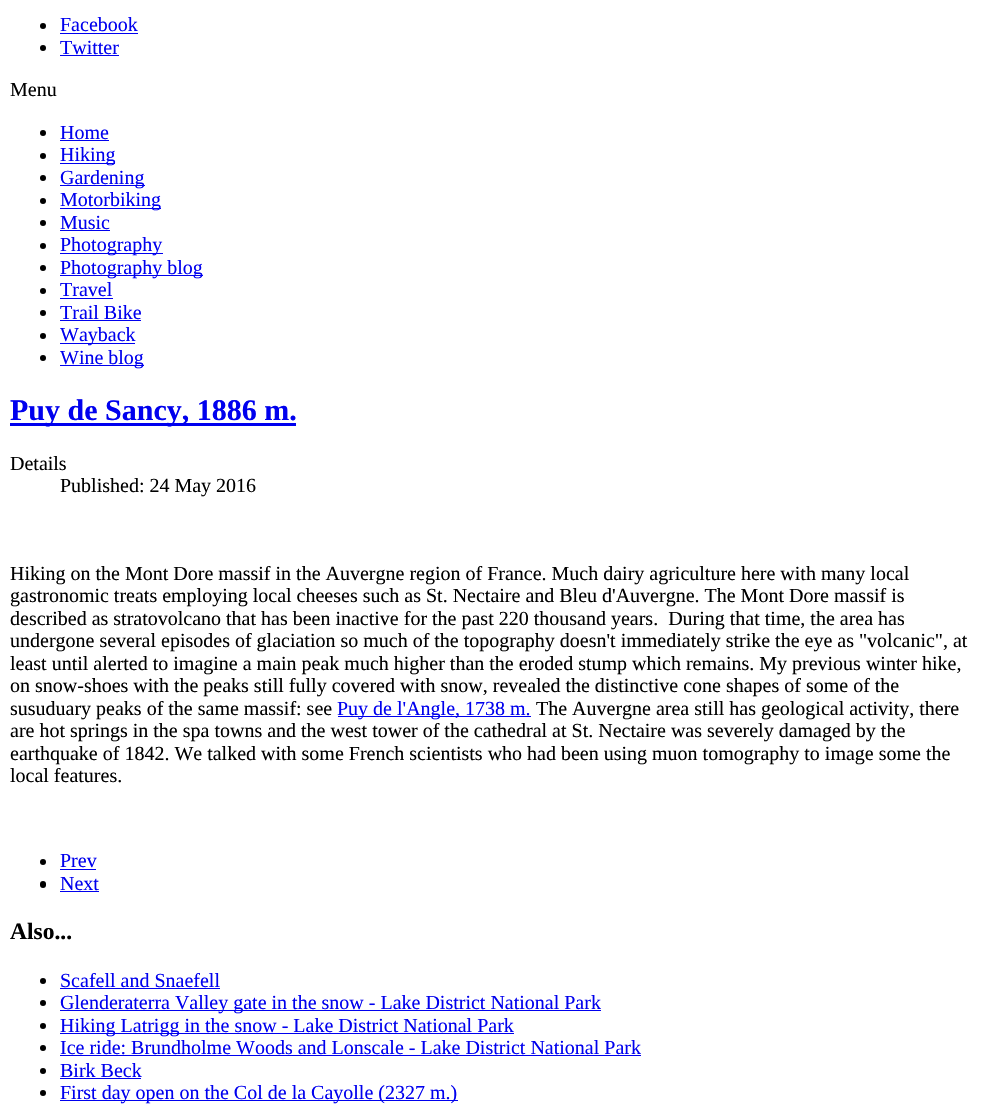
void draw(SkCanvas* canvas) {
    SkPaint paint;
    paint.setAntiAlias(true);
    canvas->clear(0xFFFFFFFF);
    paint.setColor(0xFF000000);
    canvas->drawCircle(43, 26, 3, paint);
    SkFont font1(fontMgr->matchFamilyStyle("Liberation Serif", SkFontStyle::Normal()), 20);
    font1.setSubpixel(true);
    paint.setColor(0xFF0000EE);
    canvas->drawString("Facebook", 60, 31, font1, paint);
    canvas->drawRect(SkRect::MakeXYWH(60, 33, 78, 1), paint);
    paint.setColor(0xFF000000);
    canvas->drawCircle(43, 48, 3, paint);
    paint.setColor(0xFF0000EE);
    canvas->drawString("Twitter", 60, 54, font1, paint);
    canvas->drawRect(SkRect::MakeXYWH(60, 55, 59, 1), paint);
    paint.setColor(0xFF000000);
    canvas->drawString("Menu", 10, 96, font1, paint);
    canvas->drawCircle(43, 133, 3, paint);
    paint.setColor(0xFF0000EE);
    canvas->drawString("Home", 60, 139, font1, paint);
    canvas->drawRect(SkRect::MakeXYWH(60, 140, 49, 1), paint);
    paint.setColor(0xFF000000);
    canvas->drawCircle(43, 156, 3, paint);
    paint.setColor(0xFF0000EE);
    canvas->drawRect(SkRect::MakeXYWH(60, 163, 55, 1), paint);
    canvas->drawString("Hiking", 60, 161, font1, paint);
    paint.setColor(0xFF000000);
    canvas->drawCircle(43, 178, 3, paint);
    paint.setColor(0xFF0000EE);
    canvas->drawRect(SkRect::MakeXYWH(60, 185, 85, 1), paint);
    canvas->drawString("Gardening", 60, 184, font1, paint);
    paint.setColor(0xFF000000);
    canvas->drawCircle(43, 201, 3, paint);
    paint.setColor(0xFF0000EE);
    canvas->drawRect(SkRect::MakeXYWH(60, 208, 101, 1), paint);
    canvas->drawString("Motorbiking", 60, 206, font1, paint);
    paint.setColor(0xFF000000);
    canvas->drawCircle(43, 223, 3, paint);
    paint.setColor(0xFF0000EE);
    canvas->drawString("Music", 60, 229, font1, paint);
    canvas->drawRect(SkRect::MakeXYWH(60, 230, 50, 1), paint);
    paint.setColor(0xFF000000);
    canvas->drawCircle(43, 246, 3, paint);
    paint.setColor(0xFF0000EE);
    canvas->drawRect(SkRect::MakeXYWH(60, 253, 103, 1), paint);
    canvas->drawString("Photography", 60, 251, font1, paint);
    paint.setColor(0xFF000000);
    canvas->drawCircle(43, 268, 3, paint);
    paint.setColor(0xFF0000EE);
    canvas->drawRect(SkRect::MakeXYWH(60, 275, 143, 1), paint);
    canvas->drawString("Photography blog", 60, 274, font1, paint);
    paint.setColor(0xFF000000);
    canvas->drawCircle(43, 291, 3, paint);
    paint.setColor(0xFF0000EE);
    canvas->drawString("Travel", 60, 296, font1, paint);
    canvas->drawRect(SkRect::MakeXYWH(60, 298, 53, 1), paint);
    paint.setColor(0xFF000000);
    canvas->drawCircle(43, 313, 3, paint);
    paint.setColor(0xFF0000EE);
    canvas->drawString("Trail Bike", 60, 319, font1, paint);
    canvas->drawRect(SkRect::MakeXYWH(60, 320, 81, 1), paint);
    paint.setColor(0xFF000000);
    canvas->drawCircle(43, 336, 3, paint);
    paint.setColor(0xFF0000EE);
    canvas->drawRect(SkRect::MakeXYWH(60, 343, 75, 1), paint);
    canvas->drawString("Wayback", 60, 341, font1, paint);
    paint.setColor(0xFF000000);
    canvas->drawCircle(43, 358, 3, paint);
    paint.setColor(0xFF0000EE);
    canvas->drawRect(SkRect::MakeXYWH(60, 365, 84, 1), paint);
    canvas->drawString("Wine blog", 60, 364, font1, paint);
    canvas->drawRect(SkRect::MakeXYWH(10, 423, 286, 3), paint);
    SkFont font2(fontMgr->matchFamilyStyle("Liberation Serif", SkFontStyle::Bold()), 30);
    font2.setSubpixel(true);
    canvas->drawString("Puy de Sancy, 1886 m.", 10, 420, font2, paint);
    paint.setColor(0xFF000000);
    canvas->drawString("Details", 10, 470, font1, paint);
    canvas->drawString("Published: 24 May 2016", 60, 492, font1, paint);
    canvas->drawString("Hiking on the Mont Dore massif in the Auvergne region of France. Much dairy agriculture here with many local", 10, 580, font1, paint);
    canvas->drawString("gastronomic treats employing local cheeses such as St. Nectaire and Bleu d'Auvergne. The Mont Dore massif is", 10, 602, font1, paint);
    canvas->drawString("described as stratovolcano that has been inactive for the past 220 thousand years.  During that time, the area has", 10, 625, font1, paint);
    canvas->drawString("undergone several episodes of glaciation so much of the topography doesn't immediately strike the eye as \"volcanic\", at", 10, 647, font1, paint);
    canvas->drawString("least until alerted to imagine a main peak much higher than the eroded stump which remains. My previous winter hike,", 10, 670, font1, paint);
    canvas->drawString("on snow-shoes with the peaks still fully covered with snow, revealed the distinctive cone shapes of some of the", 10, 692, font1, paint);
    canvas->drawString("susuduary peaks of the same massif: see", 10, 715, font1, paint);
    paint.setColor(0xFF0000EE);
    canvas->drawRect(SkRect::MakeXYWH(338, 716, 193, 1), paint);
    canvas->drawString("Puy de l'Angle, 1738 m.", 337, 715, font1, paint);
    paint.setColor(0xFF000000);
    canvas->drawString("The Auvergne area still has geological activity, there", 536, 715, font1, paint);
    canvas->drawString("are hot springs in the spa towns and the west tower of the cathedral at St. Nectaire was severely damaged by the", 10, 737, font1, paint);
    canvas->drawString("earthquake of 1842. We talked with some French scientists who had been using muon tomography to image some the", 10, 760, font1, paint);
    canvas->drawString("local features.", 10, 782, font1, paint);
    canvas->drawCircle(43, 862, 3, paint);
    paint.setColor(0xFF0000EE);
    canvas->drawString("Prev", 60, 867, font1, paint);
    canvas->drawRect(SkRect::MakeXYWH(60, 869, 36, 1), paint);
    paint.setColor(0xFF000000);
    canvas->drawRoundRect(SkRect::MakeXYWH(40, 881, 6, 7), 3, 3, paint);
    paint.setColor(0xFF0000EE);
    canvas->drawString("Next", 60, 890, font1, paint);
    canvas->drawRect(SkRect::MakeXYWH(60, 891, 39, 1), paint);
    SkFont font3(fontMgr->matchFamilyStyle("Liberation Serif", SkFontStyle::Bold()), 23.5f);
    font3.setSubpixel(true);
    paint.setColor(0xFF000000);
    canvas->drawString("Also...", 10, 939, font3, paint);
    canvas->drawCircle(43, 981, 3, paint);
    paint.setColor(0xFF0000EE);
    canvas->drawString("Scafell and Snaefell", 60, 987, font1, paint);
    canvas->drawRect(SkRect::MakeXYWH(60, 988, 160, 1), paint);
    paint.setColor(0xFF000000);
    canvas->drawCircle(43, 1003, 3, paint);
    paint.setColor(0xFF0000EE);
    canvas->drawRect(SkRect::MakeXYWH(60, 1010, 541, 1), paint);
    canvas->drawString("Glenderaterra Valley gate in the snow - Lake District National Park", 60, 1009, font1, paint);
    paint.setColor(0xFF000000);
    canvas->drawCircle(43, 1026, 3, paint);
    paint.setColor(0xFF0000EE);
    canvas->drawRect(SkRect::MakeXYWH(60, 1033, 454, 1), paint);
    canvas->drawString("Hiking Latrigg in the snow - Lake District National Park", 60, 1032, font1, paint);
    paint.setColor(0xFF000000);
    canvas->drawCircle(43, 1048, 3, paint);
    paint.setColor(0xFF0000EE);
    canvas->drawString("Ice ride: Brundholme Woods and Lonscale - Lake District National Park", 60, 1054, font1, paint);
    canvas->drawRect(SkRect::MakeXYWH(60, 1055, 581, 1), paint);
    paint.setColor(0xFF000000);
    canvas->drawCircle(43, 1071, 3, paint);
    paint.setColor(0xFF0000EE);
    canvas->drawString("Birk Beck", 60, 1077, font1, paint);
    canvas->drawRect(SkRect::MakeXYWH(60, 1078, 81, 1), paint);
    paint.setColor(0xFF000000);
    canvas->drawCircle(43, 1093, 3, paint);
    paint.setColor(0xFF0000EE);
    canvas->drawRect(SkRect::MakeXYWH(60, 1100, 398, 1), paint);
    canvas->drawString("First day open on the Col de la Cayolle (2327 m.)", 60, 1099, font1, paint);
}
